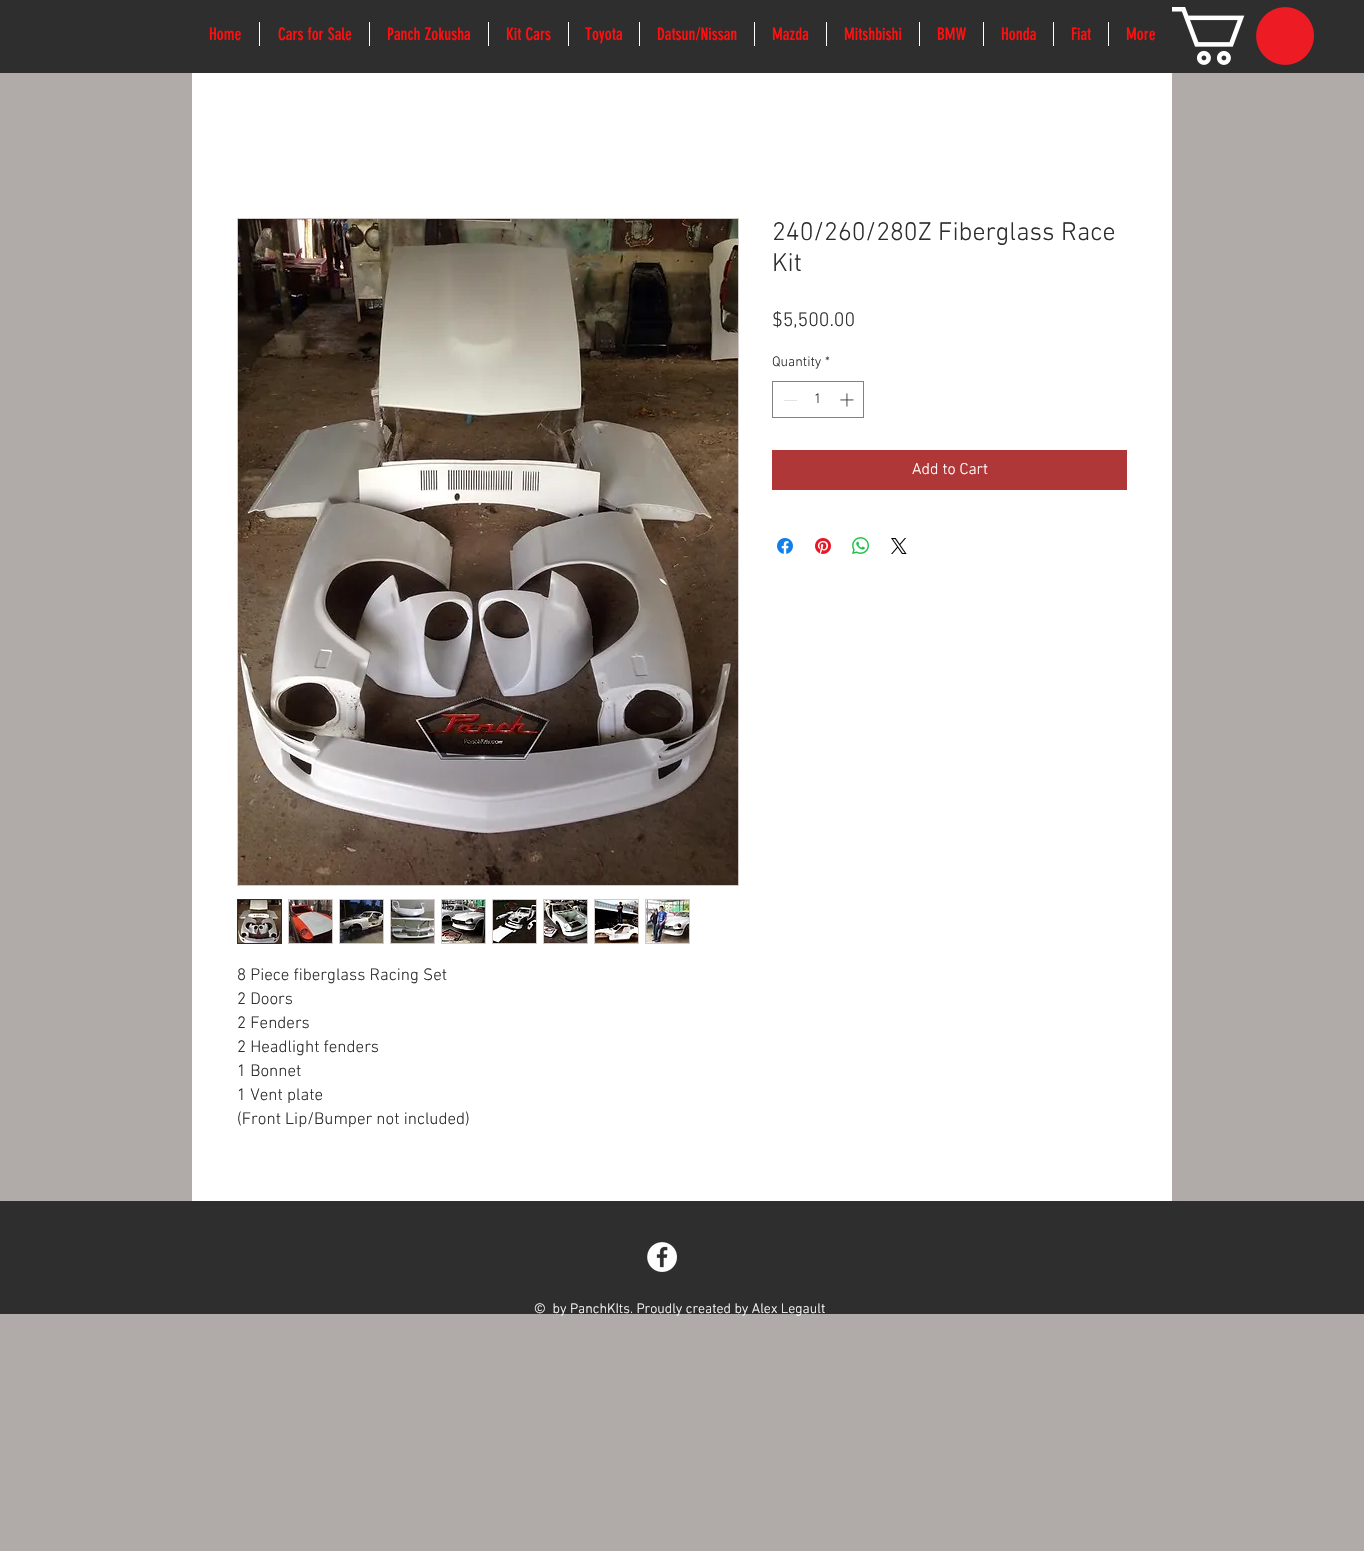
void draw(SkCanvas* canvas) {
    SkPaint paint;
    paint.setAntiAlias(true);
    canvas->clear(0xFFB0AAA9);
    paint.setColor(0xFF2F2E2E);
    canvas->drawRect(SkRect::MakeXYWH(0, 0, 1364, 73), paint);
    SkFont font1(fontMgr->matchFamilyStyle("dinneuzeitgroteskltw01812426", SkFontStyle::Normal()), 17);
    font1.setSubpixel(true);
    paint.setColor(0xFFFF0F0F);
    canvas->drawString("Home", 209, 40, font1, paint);
    paint.setColor(0xFFFFFFFF);
    canvas->drawRect(SkRect::MakeXYWH(259, 22, 1, 24), paint);
    paint.setColor(0xFFFF0F0F);
    canvas->drawString("Cars for Sale", 278, 40, font1, paint);
    paint.setColor(0xFFFFFFFF);
    canvas->drawRect(SkRect::MakeXYWH(369, 22, 1, 24), paint);
    paint.setColor(0xFFFF0F0F);
    canvas->drawString("Panch Zokusha", 387, 40, font1, paint);
    paint.setColor(0xFFFFFFFF);
    canvas->drawRect(SkRect::MakeXYWH(488, 22, 1, 24), paint);
    paint.setColor(0xFFFF0F0F);
    canvas->drawString("Kit Cars", 506, 40, font1, paint);
    paint.setColor(0xFFFFFFFF);
    canvas->drawRect(SkRect::MakeXYWH(568, 22, 1, 24), paint);
    paint.setColor(0xFFFF0F0F);
    canvas->drawString("Toyota", 585, 40, font1, paint);
    paint.setColor(0xFFFFFFFF);
    canvas->drawRect(SkRect::MakeXYWH(639, 22, 1, 24), paint);
    paint.setColor(0xFFFF0F0F);
    canvas->drawString("Datsun/Nissan", 657, 40, font1, paint);
    paint.setColor(0xFFFFFFFF);
    canvas->drawRect(SkRect::MakeXYWH(754, 22, 1, 24), paint);
    paint.setColor(0xFFFF0F0F);
    canvas->drawString("Mazda", 772, 40, font1, paint);
    paint.setColor(0xFFFFFFFF);
    canvas->drawRect(SkRect::MakeXYWH(826, 22, 1, 24), paint);
    paint.setColor(0xFFFF0F0F);
    canvas->drawString("Mitshbishi", 844, 40, font1, paint);
    paint.setColor(0xFFFFFFFF);
    canvas->drawRect(SkRect::MakeXYWH(919, 22, 1, 24), paint);
    paint.setColor(0xFFFF0F0F);
    canvas->drawString("BMW", 937, 40, font1, paint);
    paint.setColor(0xFFFFFFFF);
    canvas->drawRect(SkRect::MakeXYWH(983, 22, 1, 24), paint);
    paint.setColor(0xFFFF0F0F);
    canvas->drawString("Honda", 1001, 40, font1, paint);
    paint.setColor(0xFFFFFFFF);
    canvas->drawRect(SkRect::MakeXYWH(1053, 22, 1, 24), paint);
    paint.setColor(0xFFFF0F0F);
    canvas->drawString("Fiat", 1071, 40, font1, paint);
    paint.setColor(0xFFFFFFFF);
    canvas->drawRect(SkRect::MakeXYWH(1108, 22, 1, 24), paint);
    paint.setColor(0xFFFF0F0F);
    canvas->drawString("More", 1126, 40, font1, paint);
    canvas->drawImageRect(SkImages::DeferredFromEncodedData(SkData::MakeFromFileName("img1.png")), SkRect::MakeXYWH(1172, 7, 142, 58), SkSamplingOptions());
    paint.setColor(0xFFFFFFFF);
    canvas->drawRect(SkRect::MakeXYWH(192, 73, 980, 1128), paint);
    SkFont font2(fontMgr->matchFamilyStyle("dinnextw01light", SkFontStyle(300, SkFontStyle::kNormal_Width, SkFontStyle::kUpright_Slant)), 26);
    font2.setSubpixel(true);
    paint.setColor(0xFF2F2E2E);
    canvas->drawString("240/260/280Z Fiberglass Race", 772, 240, font2, paint);
    canvas->drawString("Kit", 772, 271, font2, paint);
    SkFont font3(fontMgr->matchFamilyStyle("dinnextw01light", SkFontStyle(300, SkFontStyle::kNormal_Width, SkFontStyle::kUpright_Slant)), 20);
    font3.setSubpixel(true);
    canvas->drawString("$5,500.00", 772, 326, font3, paint);
    SkFont font4(fontMgr->matchFamilyStyle("dinnextw01light", SkFontStyle(300, SkFontStyle::kNormal_Width, SkFontStyle::kUpright_Slant)), 14);
    font4.setSubpixel(true);
    canvas->drawString("Quantity", 772, 366, font4, paint);
    canvas->drawString("*", 825, 366, font4, paint);
    paint.setStyle(SkPaint::kStroke_Style);
    paint.setStrokeWidth(1);
    paint.setColor(0xFF828282);
    canvas->drawRect(SkRect::MakeXYWH(772.5f, 381.5f, 91, 36), paint);
    paint.setStyle(SkPaint::kFill_Style);
    paint.setColor(0xFFE3E3E3);
    canvas->drawRect(SkRect::MakeXYWH(784, 400, 13, 1), paint);
    paint.setColor(0xFF2F2E2E);
    canvas->drawString("1", 814, 403, font4, paint);
    canvas->drawImageRect(SkImages::DeferredFromEncodedData(SkData::MakeFromFileName("img2.png")), SkRect::MakeXYWH(840, 393, 14, 14), SkSamplingOptions());
    paint.setColor(0xFFB03737);
    canvas->drawRect(SkRect::MakeXYWH(772, 450, 355, 40), paint);
    SkFont font5(fontMgr->matchFamilyStyle("dinnextw01light", SkFontStyle(300, SkFontStyle::kNormal_Width, SkFontStyle::kUpright_Slant)), 16);
    font5.setSubpixel(true);
    paint.setColor(0xFFFFFFFF);
    canvas->drawString("Add to Cart", 912, 474, font5, paint);
    canvas->drawImageRect(SkImages::DeferredFromEncodedData(SkData::MakeFromFileName("img3.png")), SkRect::MakeXYWH(777, 538, 16, 16), SkSamplingOptions());
    canvas->drawImageRect(SkImages::DeferredFromEncodedData(SkData::MakeFromFileName("img4.png")), SkRect::MakeXYWH(815, 538, 16, 16), SkSamplingOptions());
    canvas->drawImageRect(SkImages::DeferredFromEncodedData(SkData::MakeFromFileName("img5.png")), SkRect::MakeXYWH(852, 537, 17, 17), SkSamplingOptions());
    canvas->drawImageRect(SkImages::DeferredFromEncodedData(SkData::MakeFromFileName("img6.png")), SkRect::MakeXYWH(891, 538, 16, 16), SkSamplingOptions());
    paint.setStyle(SkPaint::kStroke_Style);
    paint.setColor(0xFFD1CAC9);
    canvas->drawRect(SkRect::MakeXYWH(237.5f, 218.5f, 501, 667), paint);
    canvas->drawImageRect(SkImages::DeferredFromEncodedData(SkData::MakeFromFileName("img7.png")), SkRect::MakeXYWH(238, 219, 500, 666), SkSamplingOptions());
    paint.setColor(0xFF2F2E2E);
    canvas->drawRect(SkRect::MakeXYWH(237.5f, 899.5f, 44, 44), paint);
    canvas->drawImageRect(SkImages::DeferredFromEncodedData(SkData::MakeFromFileName("img8.png")), SkRect::MakeXYWH(238, 900, 43, 43), SkSamplingOptions());
    paint.setStyle(SkPaint::kFill_Style);
    paint.setColor(0xFFD1CAC9);
    canvas->drawRect(SkRect::MakeXYWH(288, 899, 45, 45), paint);
    canvas->drawImageRect(SkImages::DeferredFromEncodedData(SkData::MakeFromFileName("img9.png")), SkRect::MakeXYWH(289, 900, 43, 43), SkSamplingOptions());
    canvas->drawRect(SkRect::MakeXYWH(339, 899, 45, 45), paint);
    canvas->drawImageRect(SkImages::DeferredFromEncodedData(SkData::MakeFromFileName("img10.png")), SkRect::MakeXYWH(340, 900, 43, 43), SkSamplingOptions());
    canvas->drawRect(SkRect::MakeXYWH(390, 899, 45, 45), paint);
    canvas->drawImageRect(SkImages::DeferredFromEncodedData(SkData::MakeFromFileName("img11.png")), SkRect::MakeXYWH(391, 900, 43, 43), SkSamplingOptions());
    canvas->drawRect(SkRect::MakeXYWH(441, 899, 45, 45), paint);
    canvas->drawImageRect(SkImages::DeferredFromEncodedData(SkData::MakeFromFileName("img12.png")), SkRect::MakeXYWH(442, 900, 43, 43), SkSamplingOptions());
    canvas->drawRect(SkRect::MakeXYWH(492, 899, 45, 45), paint);
    canvas->drawImageRect(SkImages::DeferredFromEncodedData(SkData::MakeFromFileName("img13.png")), SkRect::MakeXYWH(493, 900, 43, 43), SkSamplingOptions());
    canvas->drawRect(SkRect::MakeXYWH(543, 899, 45, 45), paint);
    canvas->drawImageRect(SkImages::DeferredFromEncodedData(SkData::MakeFromFileName("img14.png")), SkRect::MakeXYWH(544, 900, 43, 43), SkSamplingOptions());
    canvas->drawRect(SkRect::MakeXYWH(594, 899, 45, 45), paint);
    canvas->drawImageRect(SkImages::DeferredFromEncodedData(SkData::MakeFromFileName("img15.png")), SkRect::MakeXYWH(595, 900, 43, 43), SkSamplingOptions());
    canvas->drawRect(SkRect::MakeXYWH(645, 899, 45, 45), paint);
    canvas->drawImageRect(SkImages::DeferredFromEncodedData(SkData::MakeFromFileName("img16.png")), SkRect::MakeXYWH(646, 900, 43, 43), SkSamplingOptions());
    SkFont font6(fontMgr->matchFamilyStyle("dinnextw01light", SkFontStyle(300, SkFontStyle::kNormal_Width, SkFontStyle::kUpright_Slant)), 17);
    font6.setSubpixel(true);
    paint.setColor(0xFF2F2E2E);
    canvas->drawString("8 Piece fiberglass Racing Set", 237, 980, font6, paint);
    canvas->drawString("2 Doors", 237, 1004, font6, paint);
    canvas->drawString("2 Fenders", 237, 1028, font6, paint);
    canvas->drawString("2 Headlight fenders", 237, 1052, font6, paint);
    canvas->drawString("1 Bonnet", 237, 1076, font6, paint);
    canvas->drawString("1 Vent plate", 237, 1100, font6, paint);
    canvas->drawString("(Front Lip/Bumper not included)", 237, 1124, font6, paint);
    canvas->drawRect(SkRect::MakeXYWH(0, 1201, 1364, 113), paint);
    canvas->drawImageRect(SkImages::DeferredFromEncodedData(SkData::MakeFromFileName("img17.png")), SkRect::MakeXYWH(647, 1242, 30, 30), SkSamplingOptions());
    paint.setColor(0xFFFFFFFF);
    canvas->drawString("©  by PanchKIts. Proudly created by Alex Legault", 534, 1313, font4, paint);
}
